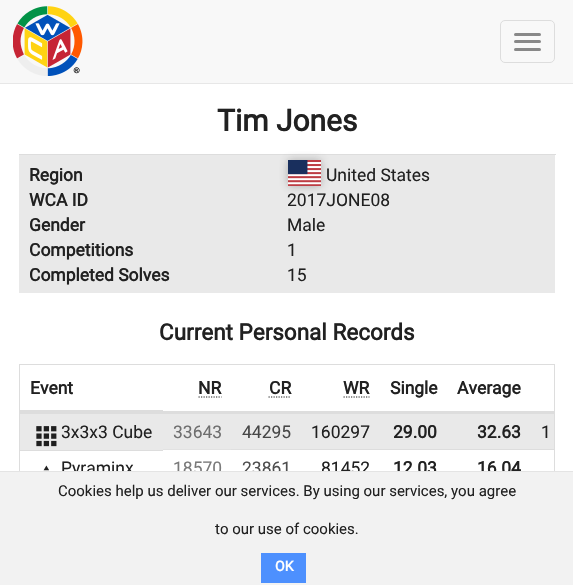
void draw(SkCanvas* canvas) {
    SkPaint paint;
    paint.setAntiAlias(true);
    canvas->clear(0xFFFFFFFF);
    paint.setColor(0xFFF8F8F8);
    canvas->drawRect(SkRect::MakeXYWH(0, 0, 573, 83), paint);
    paint.setColor(0xFFE7E7E7);
    canvas->drawRect(SkRect::MakeXYWH(0, 83, 573, 1), paint);
    canvas->drawImageRect(SkImages::DeferredFromEncodedData(SkData::MakeFromFileName("img1.png")), SkRect::MakeXYWH(13, 6, 70, 70), SkSamplingOptions());
    paint.setStyle(SkPaint::kStroke_Style);
    paint.setStrokeWidth(1);
    paint.setColor(0xFFDDDDDD);
    canvas->drawRoundRect(SkRect::MakeXYWH(500.5f, 20.5f, 54, 42), 4.5f, 4.5f, paint);
    paint.setStyle(SkPaint::kFill_Style);
    paint.setColor(0xFF888888);
    canvas->drawRoundRect(SkRect::MakeXYWH(514, 33, 27, 3), 1.5f, 1.5f, paint);
    canvas->drawRoundRect(SkRect::MakeXYWH(514, 40, 27, 3), 1.5f, 1.5f, paint);
    canvas->drawRoundRect(SkRect::MakeXYWH(514, 48, 27, 3), 1.5f, 1.5f, paint);
    SkFont font1(fontMgr->matchFamilyStyle("Roboto", SkFontStyle::Bold()), 30);
    font1.setSubpixel(true);
    paint.setColor(0xFF212121);
    canvas->drawString("Tim Jones", 217, 131, font1, paint);
    paint.setColor(0xFFE9E9E9);
    canvas->drawRect(SkRect::MakeXYWH(19, 155, 536, 138), paint);
    paint.setColor(0xFFDDDDDD);
    canvas->drawRect(SkRect::MakeXYWH(19, 154, 537, 1), paint);
    SkFont font2(fontMgr->matchFamilyStyle("Roboto", SkFontStyle::Bold()), 17.5f);
    font2.setSubpixel(true);
    paint.setColor(0xFF212121);
    canvas->drawString("Region", 29, 181, font2, paint);
    paint.setColor(0x4D222222);
    paint.setMaskFilter(SkMaskFilter::MakeBlur(kNormal_SkBlurStyle, 5));
    canvas->drawRect(SkRect::MakeXYWH(288, 160, 33, 26), paint);
    paint.setMaskFilter(nullptr);
    canvas->drawImageRect(SkImages::DeferredFromEncodedData(SkData::MakeFromFileName("img2.png")), SkRect::MakeXYWH(288, 160, 33, 26), SkSamplingOptions());
    SkFont font3(fontMgr->matchFamilyStyle("Roboto", SkFontStyle::Normal()), 17.5f);
    font3.setSubpixel(true);
    paint.setColor(0xFF212121);
    canvas->drawString("United States", 326, 181, font3, paint);
    canvas->drawString("WCA ID", 29, 206, font2, paint);
    canvas->drawString("2017JONE08", 287, 206, font3, paint);
    canvas->drawString("Gender", 29, 231, font2, paint);
    canvas->drawString("Male", 287, 231, font3, paint);
    canvas->drawString("Competitions", 29, 256, font2, paint);
    canvas->drawString("1", 287, 256, font3, paint);
    canvas->drawString("Completed Solves", 29, 281, font2, paint);
    canvas->drawString("15", 287, 281, font3, paint);
    SkFont font4(fontMgr->matchFamilyStyle("Roboto", SkFontStyle::Bold()), 22.5f);
    font4.setSubpixel(true);
    canvas->drawString("Current Personal Records", 159, 340, font4, paint);
    paint.setStyle(SkPaint::kStroke_Style);
    paint.setColor(0xFFDDDDDD);
    canvas->drawRect(SkRect::MakeXYWH(19.5f, 364.5f, 535, 159), paint);
    paint.setStyle(SkPaint::kFill_Style);
    canvas->drawRect(SkRect::MakeXYWH(20, 410, 143, 4), paint);
    paint.setColor(0xFF212121);
    canvas->drawString("Event", 30, 394, font2, paint);
    canvas->drawString("NR", 198, 394, font2, paint);
    paint.setStyle(SkPaint::kStroke_Style);
    paint.setStrokeWidth(1.2f);
    paint.setPathEffect(SkDashPathEffect::Make({{1.25f, 1.25f}}, 0));
    canvas->drawPath(SkPathBuilder().moveTo(198.5f, 397).lineTo(221.5f, 397).detach(), paint);
    paint.setPathEffect(nullptr);
    paint.setStyle(SkPaint::kFill_Style);
    canvas->drawString("CR", 269, 394, font2, paint);
    paint.setStyle(SkPaint::kStroke_Style);
    paint.setPathEffect(SkDashPathEffect::Make({{1.25f, 1.25f}}, 0));
    canvas->drawPath(SkPathBuilder().moveTo(268.5f, 397).lineTo(291, 397).detach(), paint);
    paint.setPathEffect(nullptr);
    paint.setStyle(SkPaint::kFill_Style);
    canvas->drawString("WR", 343, 394, font2, paint);
    paint.setStyle(SkPaint::kStroke_Style);
    paint.setPathEffect(SkDashPathEffect::Make({{1.25f, 1.25f}}, 0));
    canvas->drawPath(SkPathBuilder().moveTo(343.5f, 397).lineTo(369.5f, 397).detach(), paint);
    paint.setPathEffect(nullptr);
    paint.setStyle(SkPaint::kFill_Style);
    canvas->drawString("Single", 390, 394, font2, paint);
    canvas->drawString("Average", 457, 394, font2, paint);
    paint.setColor(0xFFDDDDDD);
    canvas->drawRect(SkRect::MakeXYWH(161, 411, 393, 3), paint);
    paint.setColor(0xFFE9E9E9);
    canvas->drawRect(SkRect::MakeXYWH(20, 414, 534, 36), paint);
    paint.setColor(0xFFE2E2E2);
    canvas->drawRect(SkRect::MakeXYWH(163, 449, 70, 1), paint);
    paint.setColor(0xFFDFDFDF);
    canvas->drawRect(SkRect::MakeXYWH(231, 449, 70, 1), paint);
    canvas->drawImageRect(SkImages::DeferredFromEncodedData(SkData::MakeFromFileName("img3.png")), SkRect::MakeXYWH(36, 426, 21, 21), SkSamplingOptions());
    paint.setColor(0xFF212121);
    canvas->drawString("3x3x3 Cube", 61, 438, font3, paint);
    paint.setColor(0xFF6F6F6F);
    canvas->drawString("33643", 173, 438, font3, paint);
    paint.setColor(0xFF474747);
    canvas->drawString("44295", 242, 438, font3, paint);
    paint.setColor(0xFF212121);
    canvas->drawString("160297", 311, 438, font3, paint);
    canvas->drawString("29.00", 393, 438, font2, paint);
    canvas->drawString("32.63", 477, 438, font2, paint);
    canvas->drawString("1", 541, 438, font3, paint);
    paint.setColor(0xFFDDDDDD);
    canvas->drawRect(SkRect::MakeXYWH(300, 449, 254, 1), paint);
    canvas->drawRect(SkRect::MakeXYWH(20, 450, 143, 1), paint);
    canvas->drawImageRect(SkImages::DeferredFromEncodedData(SkData::MakeFromFileName("img4.png")), SkRect::MakeXYWH(43, 465, 6, 6), SkSamplingOptions());
    paint.setColor(0xFF212121);
    canvas->drawString("Pyraminx", 61, 474, font3, paint);
    paint.setColor(0xFF7A7A7A);
    canvas->drawString("18570", 173, 474, font3, paint);
    paint.setColor(0xFF4E4E4E);
    canvas->drawString("23861", 242, 474, font3, paint);
    paint.setColor(0xFF212121);
    canvas->drawString("81452", 321, 474, font3, paint);
    canvas->drawString("12.03", 393, 474, font2, paint);
    canvas->drawString("16.04", 477, 474, font2, paint);
    paint.setColor(0xFFF2F2F2);
    canvas->drawRect(SkRect::MakeXYWH(0, 472, 573, 113), paint);
    paint.setColor(0xFFE4E4E4);
    canvas->drawRect(SkRect::MakeXYWH(0, 471, 573, 1), paint);
    SkFont font5(fontMgr->matchFamilyStyle("Roboto", SkFontStyle::Normal()), 15);
    font5.setSubpixel(true);
    paint.setColor(0xFF212121);
    canvas->drawString("Cookies help us deliver our services. By using our services, you agree", 58, 496, font5, paint);
    canvas->drawString("to our use of cookies.", 215, 534, font5, paint);
    paint.setColor(0xFF4D90FE);
    canvas->drawRect(SkRect::MakeXYWH(261, 553, 45, 30), paint);
    SkFont font6(fontMgr->matchFamilyStyle("Roboto", SkFontStyle::Bold()), 14);
    font6.setSubpixel(true);
    paint.setColor(0xFFFFFFFF);
    canvas->drawString("OK", 275, 571, font6, paint);
}
